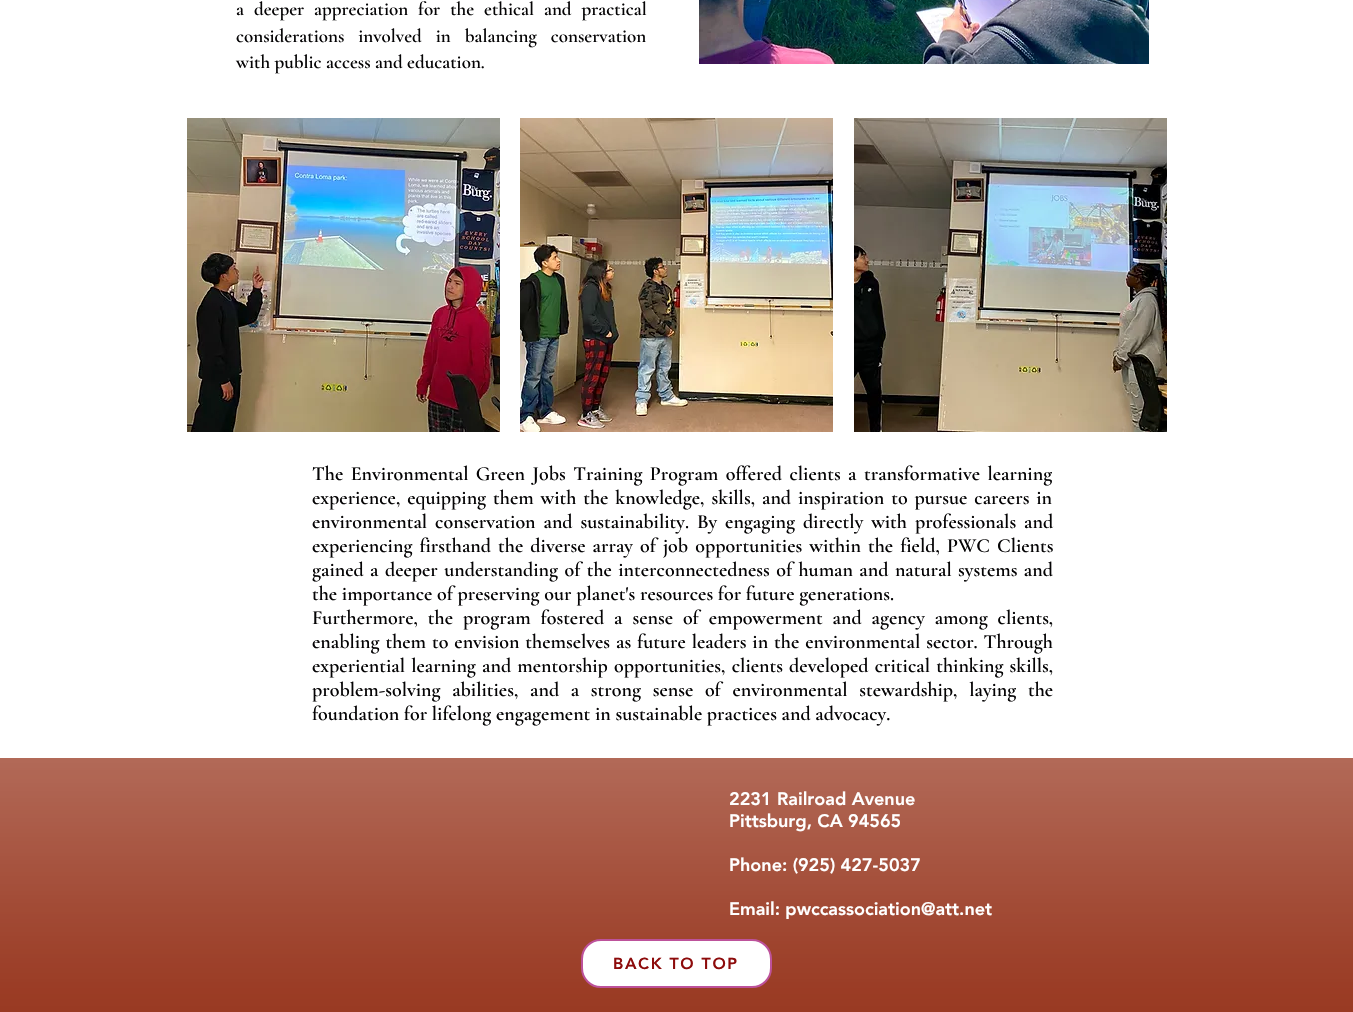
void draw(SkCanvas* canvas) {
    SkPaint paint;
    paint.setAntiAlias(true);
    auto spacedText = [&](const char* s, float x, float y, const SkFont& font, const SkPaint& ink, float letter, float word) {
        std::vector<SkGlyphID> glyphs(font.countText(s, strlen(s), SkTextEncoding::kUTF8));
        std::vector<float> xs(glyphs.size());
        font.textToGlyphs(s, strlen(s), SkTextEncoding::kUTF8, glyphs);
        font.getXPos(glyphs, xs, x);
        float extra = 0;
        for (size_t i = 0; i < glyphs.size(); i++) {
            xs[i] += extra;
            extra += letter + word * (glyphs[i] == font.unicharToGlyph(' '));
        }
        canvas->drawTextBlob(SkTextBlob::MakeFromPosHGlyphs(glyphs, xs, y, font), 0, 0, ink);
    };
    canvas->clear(0xFFFFFFFF);
    SkFont font1(fontMgr->matchFamilyStyle("Cormorant Garamond", SkFontStyle(600, SkFontStyle::kNormal_Width, SkFontStyle::kUpright_Slant)), 19);
    font1.setSubpixel(true);
    paint.setColor(0xFF050405);
    spacedText("a deeper appreciation for the ethical and practical", 236, 15, font1, paint, 0, 5.5f);
    spacedText("considerations involved in balancing conservation", 236, 42, font1, paint, 0, 9.5f);
    canvas->drawString("with public access and education.", 236, 68, font1, paint);
    canvas->drawImageRect(SkImages::DeferredFromEncodedData(SkData::MakeFromFileName("img1.png")), SkRect::MakeXYWH(699, 0, 450, 64), SkSamplingOptions());
    canvas->drawImageRect(SkImages::DeferredFromEncodedData(SkData::MakeFromFileName("img2.png")), SkRect::MakeXYWH(187, 118, 313, 314), SkSamplingOptions());
    canvas->drawImageRect(SkImages::DeferredFromEncodedData(SkData::MakeFromFileName("img3.png")), SkRect::MakeXYWH(520, 118, 313, 314), SkSamplingOptions());
    canvas->drawImageRect(SkImages::DeferredFromEncodedData(SkData::MakeFromFileName("img4.png")), SkRect::MakeXYWH(854, 118, 313, 314), SkSamplingOptions());
    SkFont font2(fontMgr->matchFamilyStyle("Cormorant Garamond", SkFontStyle(600, SkFontStyle::kNormal_Width, SkFontStyle::kUpright_Slant)), 20);
    font2.setSubpixel(true);
    spacedText("The Environmental Green Jobs Training Program offered clients a transformative learning", 312, 480, font2, paint, 0, 2.75f);
    spacedText("experience, equipping them with the knowledge, skills, and inspiration to pursue careers in", 312, 504, font2, paint, 0, 2.25f);
    spacedText("environmental conservation and sustainability. By engaging directly with professionals and", 312, 528, font2, paint, 0, 3.25f);
    spacedText("experiencing firsthand the diverse array of job opportunities within the field, PWC Clients", 312, 552, font2, paint, 0, 2.4f);
    spacedText("gained a deeper understanding of the interconnectedness of human and natural systems and", 312, 576, font2, paint, 0, 1.75f);
    canvas->drawString("the importance of preserving our planet's resources for future generations.", 312, 600, font2, paint);
    spacedText("Furthermore, the program fostered a sense of empowerment and agency among clients,", 312, 624, font2, paint, 0, 5.25f);
    spacedText("enabling them to envision themselves as future leaders in the environmental sector. Through", 312, 648, font2, paint, 0, 1.25f);
    spacedText("experiential learning and mentorship opportunities, clients developed critical thinking skills,", 312, 672, font2, paint, 0, 1.5f);
    spacedText("problem-solving abilities, and a strong sense of environmental stewardship, laying the", 312, 696, font2, paint, 0, 7);
    canvas->drawString("foundation for lifelong engagement in sustainable practices and advocacy.", 312, 720, font2, paint);
    paint.setColor(0xFF97351D);
    canvas->drawRect(SkRect::MakeXYWH(0, 758, 1353, 254), paint);
    canvas->drawImageRect(SkImages::DeferredFromEncodedData(SkData::MakeFromFileName("img5.png")), SkRect::MakeXYWH(0, 758, 1353, 254), SkSamplingOptions());
    SkFont font3(fontMgr->matchFamilyStyle("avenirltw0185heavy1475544", SkFontStyle(900, SkFontStyle::kNormal_Width, SkFontStyle::kUpright_Slant)), 18);
    font3.setSubpixel(true);
    paint.setColor(0xFFFFFFFF);
    canvas->drawString("2231 Railroad Avenue", 729, 805, font3, paint);
    canvas->drawString("Pittsburg, CA 94565", 729, 827, font3, paint);
    canvas->drawString("Phone: (925) 427-5037", 729, 871, font3, paint);
    canvas->drawString("Email: pwccassociation@att.net", 729, 915, font3, paint);
    canvas->drawRoundRect(SkRect::MakeXYWH(582, 940, 189, 47), 19, 19, paint);
    paint.setStyle(SkPaint::kStroke_Style);
    paint.setStrokeWidth(2);
    paint.setColor(0xFFBD529B);
    canvas->drawRoundRect(SkRect::MakeXYWH(582, 940, 189, 47), 19, 19, paint);
    SkFont font4(fontMgr->matchFamilyStyle("avenirltw0185heavy1475544", SkFontStyle(900, SkFontStyle::kNormal_Width, SkFontStyle::kUpright_Slant)), 16);
    font4.setSubpixel(true);
    paint.setStyle(SkPaint::kFill_Style);
    paint.setColor(0xFF8D0B0B);
    spacedText("BACK TO TOP", 613, 969, font4, paint, 1.6f, 0);
}
